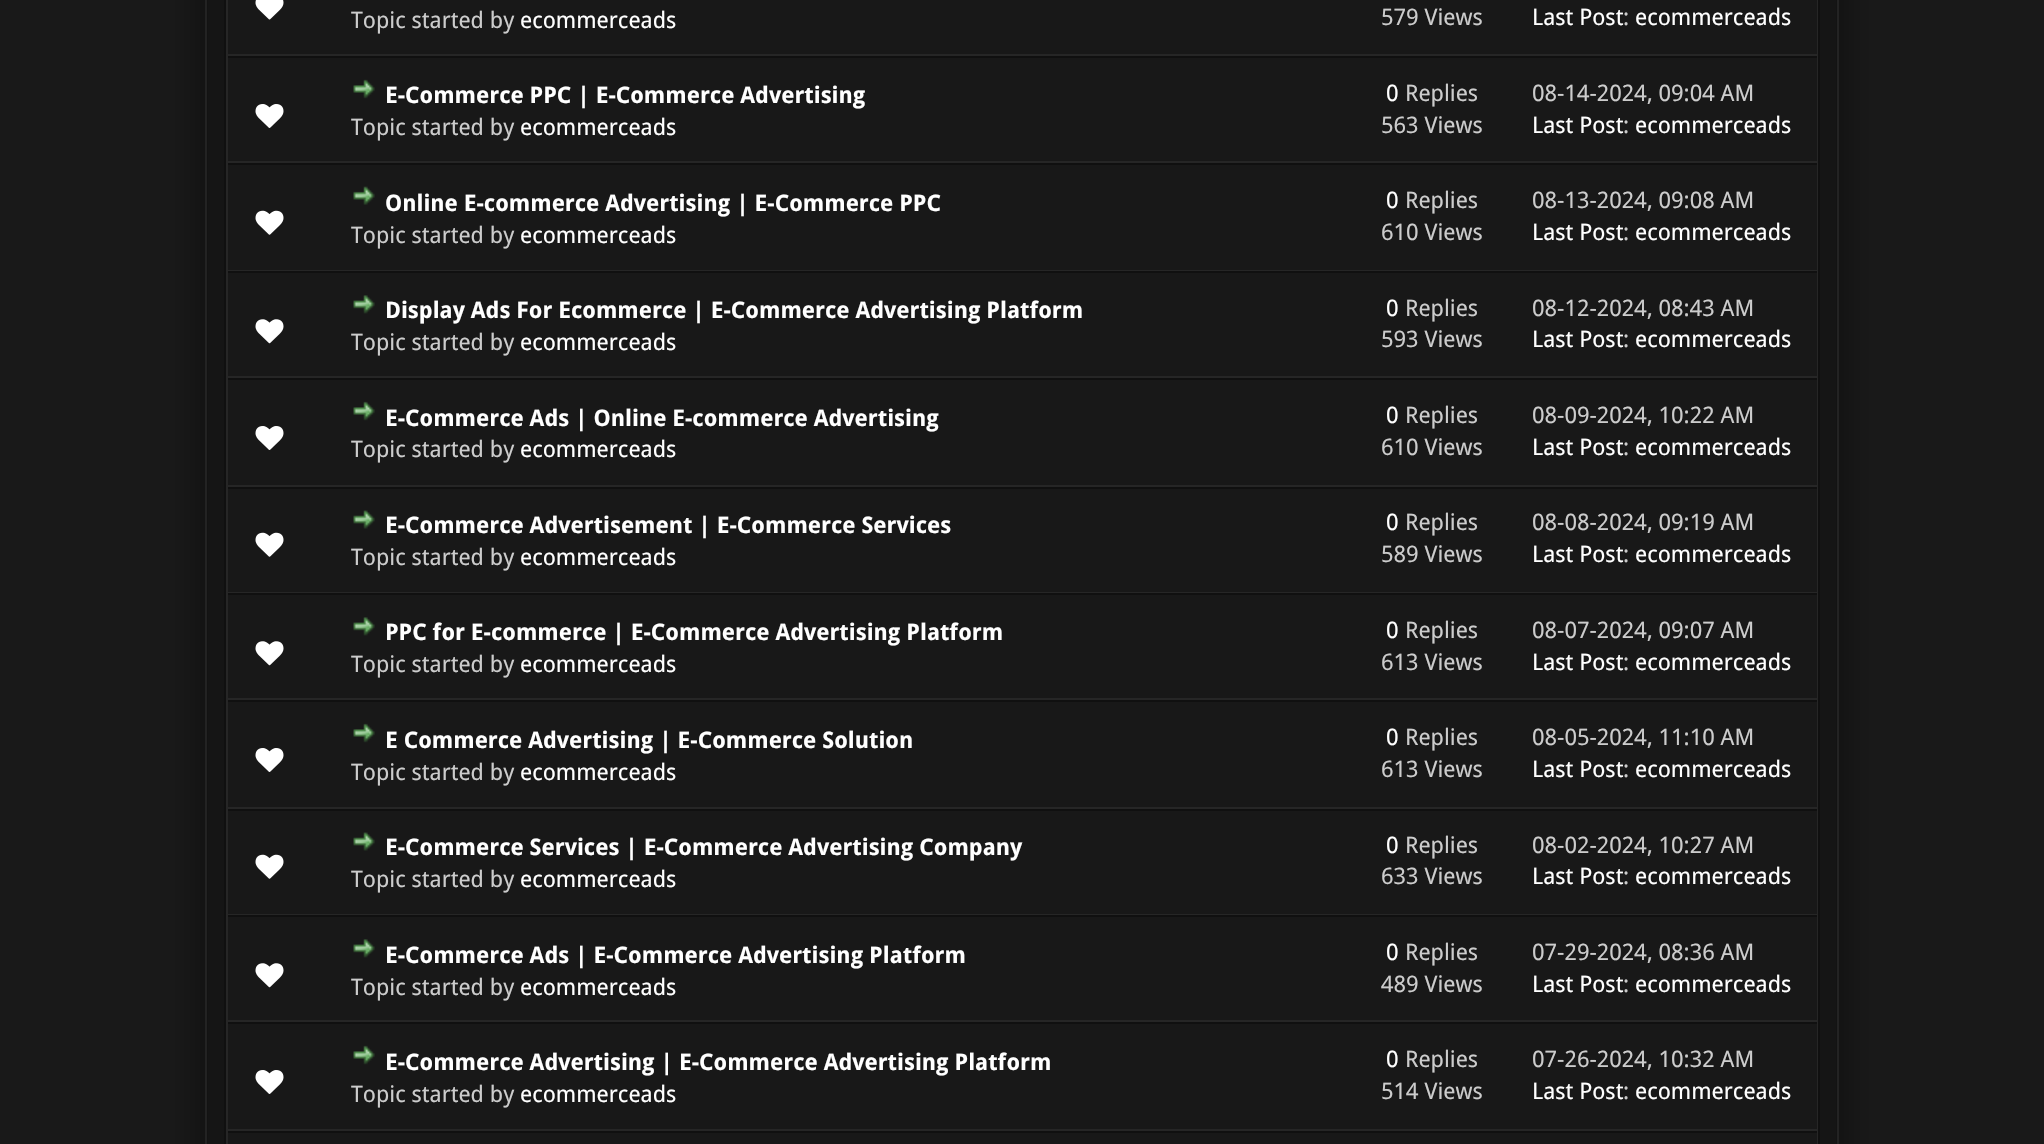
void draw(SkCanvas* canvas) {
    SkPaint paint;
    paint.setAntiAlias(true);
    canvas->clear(0xFF191919);
    paint.setColor(0xFF0D0D0D);
    paint.setMaskFilter(SkMaskFilter::MakeBlur(kNormal_SkBlurStyle, 22));
    canvas->drawRoundRect(SkRect::MakeXYWH(205, -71, 1634, 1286), 5, 5, paint);
    paint.setMaskFilter(nullptr);
    paint.setColor(0xFF151515);
    canvas->drawRect(SkRect::MakeXYWH(208, 0, 1628, 1144), paint);
    paint.setStyle(SkPaint::kStroke_Style);
    paint.setStrokeWidth(2);
    paint.setColor(0xFF232323);
    canvas->drawRect(SkRect::MakeXYWH(206, -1, 1632, 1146), paint);
    paint.setStyle(SkPaint::kFill_Style);
    paint.setColor(0xFF181818);
    canvas->drawRect(SkRect::MakeXYWH(228, 0, 1286, 1144), paint);
    paint.setStyle(SkPaint::kStroke_Style);
    paint.setColor(0xFF262626);
    canvas->drawRect(SkRect::MakeXYWH(227, -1, 1590, 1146), paint);
    paint.setColor(0xFF101010);
    canvas->drawRect(SkRect::MakeXYWH(225, -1, 1594, 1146), paint);
    paint.setStyle(SkPaint::kFill_Style);
    paint.setColor(0xFF262626);
    canvas->drawRect(SkRect::MakeXYWH(228, 54, 1589, 2), paint);
    canvas->drawImageRect(SkImages::DeferredFromEncodedData(SkData::MakeFromFileName("img1.png")), SkRect::MakeXYWH(255, 0, 29, 20), SkSamplingOptions());
    SkFont font1(fontMgr->matchFamilyStyle("Droid Sans", SkFontStyle::Normal()), 22.75f);
    font1.setSubpixel(true);
    paint.setColor(0xFFCCCCCC);
    canvas->drawString("Topic started by", 351, 28, font1, paint);
    paint.setColor(0xFFFFFFFF);
    canvas->drawString("ecommerceads", 520, 28, font1, paint);
    paint.setColor(0xFFCCCCCC);
    canvas->drawString("579 Views", 1381, 25, font1, paint);
    paint.setColor(0xFF181818);
    canvas->drawRect(SkRect::MakeXYWH(1514, 0, 303, 54), paint);
    paint.setColor(0xFFFFFFFF);
    canvas->drawString("Last Post", 1532, 25, font1, paint);
    paint.setColor(0xFFCCCCCC);
    canvas->drawString(":", 1623, 25, font1, paint);
    paint.setColor(0xFFFFFFFF);
    canvas->drawString("ecommerceads", 1635, 25, font1, paint);
    paint.setColor(0xFF101010);
    canvas->drawRect(SkRect::MakeXYWH(228, 56, 1589, 2), paint);
    paint.setColor(0xFF262626);
    canvas->drawRect(SkRect::MakeXYWH(228, 161, 1589, 2), paint);
    canvas->drawImageRect(SkImages::DeferredFromEncodedData(SkData::MakeFromFileName("img2.png")), SkRect::MakeXYWH(255, 104, 29, 24), SkSamplingOptions());
    canvas->drawImageRect(SkImages::DeferredFromEncodedData(SkData::MakeFromFileName("img3.png")), SkRect::MakeXYWH(353, 79, 22, 20), SkSamplingOptions());
    SkFont font2(fontMgr->matchFamilyStyle("Droid Sans", SkFontStyle::Bold()), 22.75f);
    font2.setSubpixel(true);
    paint.setColor(0xFFFFFFFF);
    canvas->drawString("E-Commerce PPC | E-Commerce Advertising", 385, 103, font2, paint);
    paint.setColor(0xFFCCCCCC);
    canvas->drawString("Topic started by", 351, 135, font1, paint);
    paint.setColor(0xFFFFFFFF);
    canvas->drawString("ecommerceads", 520, 135, font1, paint);
    canvas->drawString("0", 1386, 101, font1, paint);
    paint.setColor(0xFFCCCCCC);
    canvas->drawString("Replies", 1405, 101, font1, paint);
    canvas->drawString("563 Views", 1381, 133, font1, paint);
    paint.setColor(0xFF181818);
    canvas->drawRect(SkRect::MakeXYWH(1514, 58, 303, 103), paint);
    paint.setColor(0xFFCCCCCC);
    canvas->drawString("08-14-2024, 09:04 AM", 1532, 101, font1, paint);
    paint.setColor(0xFFFFFFFF);
    canvas->drawString("Last Post", 1532, 133, font1, paint);
    paint.setColor(0xFFCCCCCC);
    canvas->drawString(":", 1623, 133, font1, paint);
    paint.setColor(0xFFFFFFFF);
    canvas->drawString("ecommerceads", 1635, 133, font1, paint);
    paint.setColor(0xFF101010);
    canvas->drawRect(SkRect::MakeXYWH(228, 163, 1589, 2), paint);
    paint.setColor(0xFF262626);
    canvas->drawRect(SkRect::MakeXYWH(228, 270, 1589, 1), paint);
    canvas->drawImageRect(SkImages::DeferredFromEncodedData(SkData::MakeFromFileName("img4.png")), SkRect::MakeXYWH(255, 210, 29, 25), SkSamplingOptions());
    canvas->drawImageRect(SkImages::DeferredFromEncodedData(SkData::MakeFromFileName("img5.png")), SkRect::MakeXYWH(353, 186, 22, 19), SkSamplingOptions());
    paint.setColor(0xFFFFFFFF);
    canvas->drawString("Online E-commerce Advertising | E-Commerce PPC", 385, 211, font2, paint);
    paint.setColor(0xFFCCCCCC);
    canvas->drawString("Topic started by", 351, 243, font1, paint);
    paint.setColor(0xFFFFFFFF);
    canvas->drawString("ecommerceads", 520, 243, font1, paint);
    canvas->drawString("0", 1386, 208, font1, paint);
    paint.setColor(0xFFCCCCCC);
    canvas->drawString("Replies", 1405, 208, font1, paint);
    canvas->drawString("610 Views", 1381, 240, font1, paint);
    paint.setColor(0xFF181818);
    canvas->drawRect(SkRect::MakeXYWH(1514, 165, 303, 105), paint);
    paint.setColor(0xFFCCCCCC);
    canvas->drawString("08-13-2024, 09:08 AM", 1532, 208, font1, paint);
    paint.setColor(0xFFFFFFFF);
    canvas->drawString("Last Post", 1532, 240, font1, paint);
    paint.setColor(0xFFCCCCCC);
    canvas->drawString(":", 1623, 240, font1, paint);
    paint.setColor(0xFFFFFFFF);
    canvas->drawString("ecommerceads", 1635, 240, font1, paint);
    paint.setColor(0xFF101010);
    canvas->drawRect(SkRect::MakeXYWH(228, 271, 1589, 2), paint);
    paint.setColor(0xFF262626);
    canvas->drawRect(SkRect::MakeXYWH(228, 376, 1589, 2), paint);
    canvas->drawImageRect(SkImages::DeferredFromEncodedData(SkData::MakeFromFileName("img6.png")), SkRect::MakeXYWH(255, 319, 29, 25), SkSamplingOptions());
    canvas->drawImageRect(SkImages::DeferredFromEncodedData(SkData::MakeFromFileName("img7.png")), SkRect::MakeXYWH(353, 295, 22, 19), SkSamplingOptions());
    paint.setColor(0xFFFFFFFF);
    canvas->drawString("Display Ads For Ecommerce | E-Commerce Advertising Platform", 385, 318, font2, paint);
    paint.setColor(0xFFCCCCCC);
    canvas->drawString("Topic started by", 351, 350, font1, paint);
    paint.setColor(0xFFFFFFFF);
    canvas->drawString("ecommerceads", 520, 350, font1, paint);
    canvas->drawString("0", 1386, 316, font1, paint);
    paint.setColor(0xFFCCCCCC);
    canvas->drawString("Replies", 1405, 316, font1, paint);
    canvas->drawString("593 Views", 1381, 347, font1, paint);
    paint.setColor(0xFF181818);
    canvas->drawRect(SkRect::MakeXYWH(1514, 273, 303, 103), paint);
    paint.setColor(0xFFCCCCCC);
    canvas->drawString("08-12-2024, 08:43 AM", 1532, 316, font1, paint);
    paint.setColor(0xFFFFFFFF);
    canvas->drawString("Last Post", 1532, 347, font1, paint);
    paint.setColor(0xFFCCCCCC);
    canvas->drawString(":", 1623, 347, font1, paint);
    paint.setColor(0xFFFFFFFF);
    canvas->drawString("ecommerceads", 1635, 347, font1, paint);
    paint.setColor(0xFF101010);
    canvas->drawRect(SkRect::MakeXYWH(228, 378, 1589, 2), paint);
    paint.setColor(0xFF262626);
    canvas->drawRect(SkRect::MakeXYWH(228, 485, 1589, 2), paint);
    canvas->drawImageRect(SkImages::DeferredFromEncodedData(SkData::MakeFromFileName("img2.png")), SkRect::MakeXYWH(255, 426, 29, 24), SkSamplingOptions());
    canvas->drawImageRect(SkImages::DeferredFromEncodedData(SkData::MakeFromFileName("img3.png")), SkRect::MakeXYWH(353, 401, 22, 20), SkSamplingOptions());
    paint.setColor(0xFFFFFFFF);
    canvas->drawString("E-Commerce Ads | Online E-commerce Advertising", 385, 426, font2, paint);
    paint.setColor(0xFFCCCCCC);
    canvas->drawString("Topic started by", 351, 457, font1, paint);
    paint.setColor(0xFFFFFFFF);
    canvas->drawString("ecommerceads", 520, 457, font1, paint);
    canvas->drawString("0", 1386, 423, font1, paint);
    paint.setColor(0xFFCCCCCC);
    canvas->drawString("Replies", 1405, 423, font1, paint);
    canvas->drawString("610 Views", 1381, 455, font1, paint);
    paint.setColor(0xFF181818);
    canvas->drawRect(SkRect::MakeXYWH(1514, 380, 303, 105), paint);
    paint.setColor(0xFFCCCCCC);
    canvas->drawString("08-09-2024, 10:22 AM", 1532, 423, font1, paint);
    paint.setColor(0xFFFFFFFF);
    canvas->drawString("Last Post", 1532, 455, font1, paint);
    paint.setColor(0xFFCCCCCC);
    canvas->drawString(":", 1623, 455, font1, paint);
    paint.setColor(0xFFFFFFFF);
    canvas->drawString("ecommerceads", 1635, 455, font1, paint);
    paint.setColor(0xFF101010);
    canvas->drawRect(SkRect::MakeXYWH(228, 487, 1589, 2), paint);
    paint.setColor(0xFF262626);
    canvas->drawRect(SkRect::MakeXYWH(228, 592, 1589, 1), paint);
    canvas->drawImageRect(SkImages::DeferredFromEncodedData(SkData::MakeFromFileName("img4.png")), SkRect::MakeXYWH(255, 532, 29, 25), SkSamplingOptions());
    canvas->drawImageRect(SkImages::DeferredFromEncodedData(SkData::MakeFromFileName("img8.png")), SkRect::MakeXYWH(353, 510, 22, 19), SkSamplingOptions());
    paint.setColor(0xFFFFFFFF);
    canvas->drawString("E-Commerce Advertisement | E-Commerce Services", 385, 533, font2, paint);
    paint.setColor(0xFFCCCCCC);
    canvas->drawString("Topic started by", 351, 565, font1, paint);
    paint.setColor(0xFFFFFFFF);
    canvas->drawString("ecommerceads", 520, 565, font1, paint);
    canvas->drawString("0", 1386, 530, font1, paint);
    paint.setColor(0xFFCCCCCC);
    canvas->drawString("Replies", 1405, 530, font1, paint);
    canvas->drawString("589 Views", 1381, 562, font1, paint);
    paint.setColor(0xFF181818);
    canvas->drawRect(SkRect::MakeXYWH(1514, 489, 303, 103), paint);
    paint.setColor(0xFFCCCCCC);
    canvas->drawString("08-08-2024, 09:19 AM", 1532, 530, font1, paint);
    paint.setColor(0xFFFFFFFF);
    canvas->drawString("Last Post", 1532, 562, font1, paint);
    paint.setColor(0xFFCCCCCC);
    canvas->drawString(":", 1623, 562, font1, paint);
    paint.setColor(0xFFFFFFFF);
    canvas->drawString("ecommerceads", 1635, 562, font1, paint);
    paint.setColor(0xFF101010);
    canvas->drawRect(SkRect::MakeXYWH(228, 593, 1589, 2), paint);
    paint.setColor(0xFF262626);
    canvas->drawRect(SkRect::MakeXYWH(228, 698, 1589, 2), paint);
    canvas->drawImageRect(SkImages::DeferredFromEncodedData(SkData::MakeFromFileName("img6.png")), SkRect::MakeXYWH(255, 641, 29, 25), SkSamplingOptions());
    canvas->drawImageRect(SkImages::DeferredFromEncodedData(SkData::MakeFromFileName("img9.png")), SkRect::MakeXYWH(353, 617, 22, 19), SkSamplingOptions());
    paint.setColor(0xFFFFFFFF);
    canvas->drawString("PPC for E-commerce | E-Commerce Advertising Platform", 385, 640, font2, paint);
    paint.setColor(0xFFCCCCCC);
    canvas->drawString("Topic started by", 351, 672, font1, paint);
    paint.setColor(0xFFFFFFFF);
    canvas->drawString("ecommerceads", 520, 672, font1, paint);
    canvas->drawString("0", 1386, 638, font1, paint);
    paint.setColor(0xFFCCCCCC);
    canvas->drawString("Replies", 1405, 638, font1, paint);
    canvas->drawString("613 Views", 1381, 670, font1, paint);
    paint.setColor(0xFF181818);
    canvas->drawRect(SkRect::MakeXYWH(1514, 595, 303, 103), paint);
    paint.setColor(0xFFCCCCCC);
    canvas->drawString("08-07-2024, 09:07 AM", 1532, 638, font1, paint);
    paint.setColor(0xFFFFFFFF);
    canvas->drawString("Last Post", 1532, 670, font1, paint);
    paint.setColor(0xFFCCCCCC);
    canvas->drawString(":", 1623, 670, font1, paint);
    paint.setColor(0xFFFFFFFF);
    canvas->drawString("ecommerceads", 1635, 670, font1, paint);
    paint.setColor(0xFF101010);
    canvas->drawRect(SkRect::MakeXYWH(228, 700, 1589, 2), paint);
    paint.setColor(0xFF262626);
    canvas->drawRect(SkRect::MakeXYWH(228, 807, 1589, 2), paint);
    canvas->drawImageRect(SkImages::DeferredFromEncodedData(SkData::MakeFromFileName("img2.png")), SkRect::MakeXYWH(255, 748, 29, 24), SkSamplingOptions());
    canvas->drawImageRect(SkImages::DeferredFromEncodedData(SkData::MakeFromFileName("img3.png")), SkRect::MakeXYWH(353, 723, 22, 20), SkSamplingOptions());
    paint.setColor(0xFFFFFFFF);
    canvas->drawString("E Commerce Advertising | E-Commerce Solution", 385, 748, font2, paint);
    paint.setColor(0xFFCCCCCC);
    canvas->drawString("Topic started by", 351, 780, font1, paint);
    paint.setColor(0xFFFFFFFF);
    canvas->drawString("ecommerceads", 520, 780, font1, paint);
    canvas->drawString("0", 1386, 745, font1, paint);
    paint.setColor(0xFFCCCCCC);
    canvas->drawString("Replies", 1405, 745, font1, paint);
    canvas->drawString("613 Views", 1381, 777, font1, paint);
    paint.setColor(0xFF181818);
    canvas->drawRect(SkRect::MakeXYWH(1514, 702, 303, 105), paint);
    paint.setColor(0xFFCCCCCC);
    canvas->drawString("08-05-2024, 11:10 AM", 1532, 745, font1, paint);
    paint.setColor(0xFFFFFFFF);
    canvas->drawString("Last Post", 1532, 777, font1, paint);
    paint.setColor(0xFFCCCCCC);
    canvas->drawString(":", 1623, 777, font1, paint);
    paint.setColor(0xFFFFFFFF);
    canvas->drawString("ecommerceads", 1635, 777, font1, paint);
    paint.setColor(0xFF101010);
    canvas->drawRect(SkRect::MakeXYWH(228, 809, 1589, 2), paint);
    paint.setColor(0xFF262626);
    canvas->drawRect(SkRect::MakeXYWH(228, 914, 1589, 1), paint);
    canvas->drawImageRect(SkImages::DeferredFromEncodedData(SkData::MakeFromFileName("img4.png")), SkRect::MakeXYWH(255, 854, 29, 25), SkSamplingOptions());
    canvas->drawImageRect(SkImages::DeferredFromEncodedData(SkData::MakeFromFileName("img8.png")), SkRect::MakeXYWH(353, 832, 22, 19), SkSamplingOptions());
    paint.setColor(0xFFFFFFFF);
    canvas->drawString("E-Commerce Services | E-Commerce Advertising Company", 385, 855, font2, paint);
    paint.setColor(0xFFCCCCCC);
    canvas->drawString("Topic started by", 351, 887, font1, paint);
    paint.setColor(0xFFFFFFFF);
    canvas->drawString("ecommerceads", 520, 887, font1, paint);
    canvas->drawString("0", 1386, 853, font1, paint);
    paint.setColor(0xFFCCCCCC);
    canvas->drawString("Replies", 1405, 853, font1, paint);
    canvas->drawString("633 Views", 1381, 884, font1, paint);
    paint.setColor(0xFF181818);
    canvas->drawRect(SkRect::MakeXYWH(1514, 811, 303, 103), paint);
    paint.setColor(0xFFCCCCCC);
    canvas->drawString("08-02-2024, 10:27 AM", 1532, 853, font1, paint);
    paint.setColor(0xFFFFFFFF);
    canvas->drawString("Last Post", 1532, 884, font1, paint);
    paint.setColor(0xFFCCCCCC);
    canvas->drawString(":", 1623, 884, font1, paint);
    paint.setColor(0xFFFFFFFF);
    canvas->drawString("ecommerceads", 1635, 884, font1, paint);
    paint.setColor(0xFF101010);
    canvas->drawRect(SkRect::MakeXYWH(228, 915, 1589, 2), paint);
    paint.setColor(0xFF262626);
    canvas->drawRect(SkRect::MakeXYWH(228, 1020, 1589, 2), paint);
    canvas->drawImageRect(SkImages::DeferredFromEncodedData(SkData::MakeFromFileName("img6.png")), SkRect::MakeXYWH(255, 963, 29, 25), SkSamplingOptions());
    canvas->drawImageRect(SkImages::DeferredFromEncodedData(SkData::MakeFromFileName("img9.png")), SkRect::MakeXYWH(353, 939, 22, 19), SkSamplingOptions());
    paint.setColor(0xFFFFFFFF);
    canvas->drawString("E-Commerce Ads | E-Commerce Advertising Platform", 385, 963, font2, paint);
    paint.setColor(0xFFCCCCCC);
    canvas->drawString("Topic started by", 351, 995, font1, paint);
    paint.setColor(0xFFFFFFFF);
    canvas->drawString("ecommerceads", 520, 995, font1, paint);
    canvas->drawString("0", 1386, 960, font1, paint);
    paint.setColor(0xFFCCCCCC);
    canvas->drawString("Replies", 1405, 960, font1, paint);
    canvas->drawString("489 Views", 1381, 992, font1, paint);
    paint.setColor(0xFF181818);
    canvas->drawRect(SkRect::MakeXYWH(1514, 917, 303, 103), paint);
    paint.setColor(0xFFCCCCCC);
    canvas->drawString("07-29-2024, 08:36 AM", 1532, 960, font1, paint);
    paint.setColor(0xFFFFFFFF);
    canvas->drawString("Last Post", 1532, 992, font1, paint);
    paint.setColor(0xFFCCCCCC);
    canvas->drawString(":", 1623, 992, font1, paint);
    paint.setColor(0xFFFFFFFF);
    canvas->drawString("ecommerceads", 1635, 992, font1, paint);
    paint.setColor(0xFF101010);
    canvas->drawRect(SkRect::MakeXYWH(228, 1022, 1589, 2), paint);
    paint.setColor(0xFF262626);
    canvas->drawRect(SkRect::MakeXYWH(228, 1129, 1589, 2), paint);
    canvas->drawImageRect(SkImages::DeferredFromEncodedData(SkData::MakeFromFileName("img2.png")), SkRect::MakeXYWH(255, 1070, 29, 24), SkSamplingOptions());
    canvas->drawImageRect(SkImages::DeferredFromEncodedData(SkData::MakeFromFileName("img3.png")), SkRect::MakeXYWH(353, 1045, 22, 20), SkSamplingOptions());
    paint.setColor(0xFFFFFFFF);
    canvas->drawString("E-Commerce Advertising | E-Commerce Advertising Platform", 385, 1070, font2, paint);
    paint.setColor(0xFFCCCCCC);
    canvas->drawString("Topic started by", 351, 1102, font1, paint);
    paint.setColor(0xFFFFFFFF);
    canvas->drawString("ecommerceads", 520, 1102, font1, paint);
    canvas->drawString("0", 1386, 1067, font1, paint);
    paint.setColor(0xFFCCCCCC);
    canvas->drawString("Replies", 1405, 1067, font1, paint);
    canvas->drawString("514 Views", 1381, 1099, font1, paint);
    paint.setColor(0xFF181818);
    canvas->drawRect(SkRect::MakeXYWH(1514, 1024, 303, 105), paint);
    paint.setColor(0xFFCCCCCC);
    canvas->drawString("07-26-2024, 10:32 AM", 1532, 1067, font1, paint);
    paint.setColor(0xFFFFFFFF);
    canvas->drawString("Last Post", 1532, 1099, font1, paint);
    paint.setColor(0xFFCCCCCC);
    canvas->drawString(":", 1623, 1099, font1, paint);
    paint.setColor(0xFFFFFFFF);
    canvas->drawString("ecommerceads", 1635, 1099, font1, paint);
    paint.setColor(0xFF101010);
    canvas->drawRect(SkRect::MakeXYWH(228, 1131, 1589, 2), paint);
    paint.setColor(0xFF181818);
    canvas->drawRect(SkRect::MakeXYWH(1514, 1133, 303, 11), paint);
}
